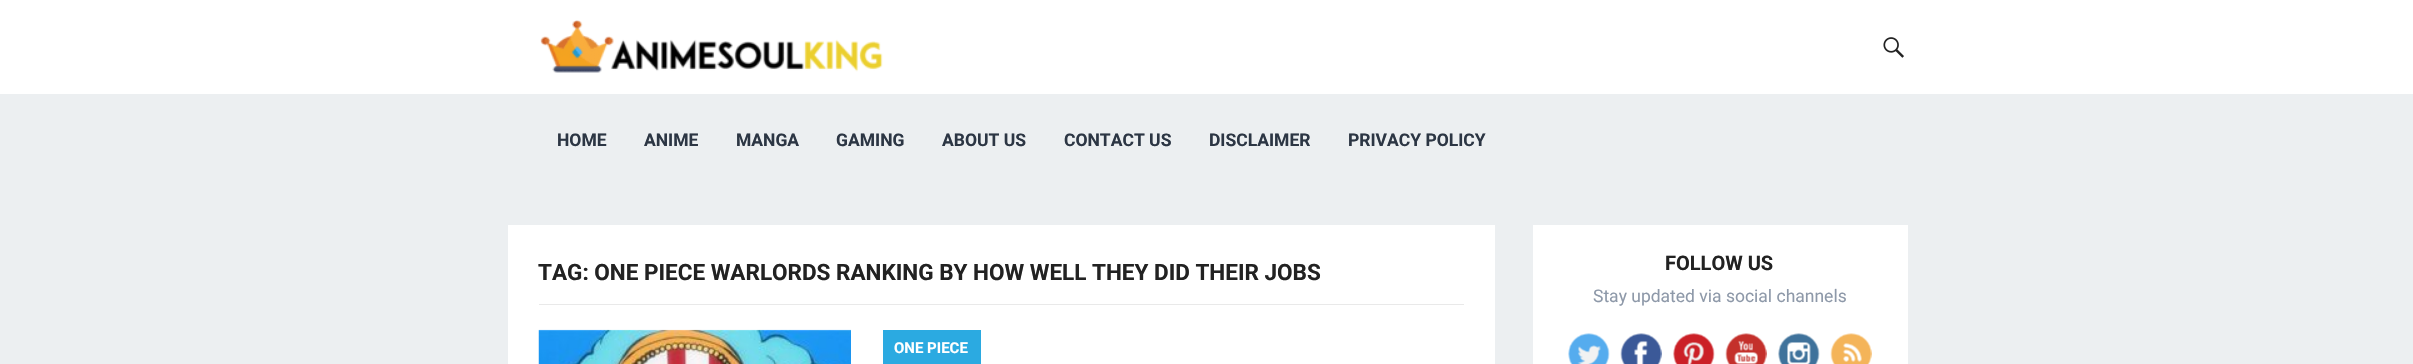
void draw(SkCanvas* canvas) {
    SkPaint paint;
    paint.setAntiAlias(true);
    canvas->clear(0xFFECEFF1);
    paint.setColor(0xFFFFFFFF);
    canvas->drawRect(SkRect::MakeXYWH(0, 0, 2413, 94), paint);
    canvas->drawImageRect(SkImages::DeferredFromEncodedData(SkData::MakeFromFileName("img1.png")), SkRect::MakeXYWH(540, 20, 343, 53), SkSamplingOptions());
    canvas->drawImageRect(SkImages::DeferredFromEncodedData(SkData::MakeFromFileName("img2.png")), SkRect::MakeXYWH(1883, 37, 21, 21), SkSamplingOptions());
    SkFont font1(fontMgr->matchFamilyStyle("Roboto", SkFontStyle::Bold()), 17.5f);
    font1.setSubpixel(true);
    paint.setColor(0xFF2C3644);
    canvas->drawString("HOME", 557, 146, font1, paint);
    canvas->drawString("ANIME", 644, 146, font1, paint);
    canvas->drawString("MANGA", 736, 146, font1, paint);
    canvas->drawString("GAMING", 836, 146, font1, paint);
    canvas->drawString("ABOUT US", 942, 146, font1, paint);
    canvas->drawString("CONTACT US", 1064, 146, font1, paint);
    canvas->drawString("DISCLAIMER", 1209, 146, font1, paint);
    canvas->drawString("PRIVACY POLICY", 1348, 146, font1, paint);
    paint.setColor(0xFFFFFFFF);
    canvas->drawRect(SkRect::MakeXYWH(508, 225, 987, 139), paint);
    paint.setColor(0xFFE9E9E9);
    canvas->drawRect(SkRect::MakeXYWH(539, 304, 925, 1), paint);
    SkFont font2(fontMgr->matchFamilyStyle("Roboto", SkFontStyle::Bold()), 22.5f);
    font2.setSubpixel(true);
    paint.setColor(0xFF222222);
    canvas->drawString("TAG: ONE PIECE WARLORDS RANKING BY HOW WELL THEY DID THEIR JOBS", 538, 280, font2, paint);
    canvas->drawImageRect(SkImages::DeferredFromEncodedData(SkData::MakeFromFileName("img3.png")), SkRect::MakeXYWH(538, 329, 313, 35), SkSamplingOptions());
    paint.setColor(0xFF2BAAE1);
    canvas->drawRect(SkRect::MakeXYWH(883, 330, 98, 34), paint);
    SkFont font3(fontMgr->matchFamilyStyle("Roboto", SkFontStyle::Bold()), 15);
    font3.setSubpixel(true);
    paint.setColor(0xFFFFFFFF);
    canvas->drawString("ONE PIECE", 894, 353, font3, paint);
    canvas->drawRect(SkRect::MakeXYWH(1533, 225, 375, 139), paint);
    SkFont font4(fontMgr->matchFamilyStyle("Roboto", SkFontStyle::Bold()), 20);
    font4.setSubpixel(true);
    paint.setColor(0xFF222222);
    canvas->drawString("FOLLOW US", 1665, 270, font4, paint);
    SkFont font5(fontMgr->matchFamilyStyle("Roboto", SkFontStyle::Normal()), 17.5f);
    font5.setSubpixel(true);
    paint.setColor(0xFF8E99A9);
    canvas->drawString("Stay updated via social channels", 1593, 302, font5, paint);
    canvas->drawImageRect(SkImages::DeferredFromEncodedData(SkData::MakeFromFileName("img4.png")), SkRect::MakeXYWH(1568, 333, 42, 31), SkSamplingOptions());
    canvas->drawImageRect(SkImages::DeferredFromEncodedData(SkData::MakeFromFileName("img5.png")), SkRect::MakeXYWH(1620, 333, 42, 31), SkSamplingOptions());
    canvas->drawImageRect(SkImages::DeferredFromEncodedData(SkData::MakeFromFileName("img6.png")), SkRect::MakeXYWH(1673, 333, 42, 31), SkSamplingOptions());
    canvas->drawImageRect(SkImages::DeferredFromEncodedData(SkData::MakeFromFileName("img7.png")), SkRect::MakeXYWH(1725, 333, 42, 31), SkSamplingOptions());
    canvas->drawImageRect(SkImages::DeferredFromEncodedData(SkData::MakeFromFileName("img8.png")), SkRect::MakeXYWH(1778, 333, 42, 31), SkSamplingOptions());
    canvas->drawImageRect(SkImages::DeferredFromEncodedData(SkData::MakeFromFileName("img9.png")), SkRect::MakeXYWH(1830, 333, 42, 31), SkSamplingOptions());
}
